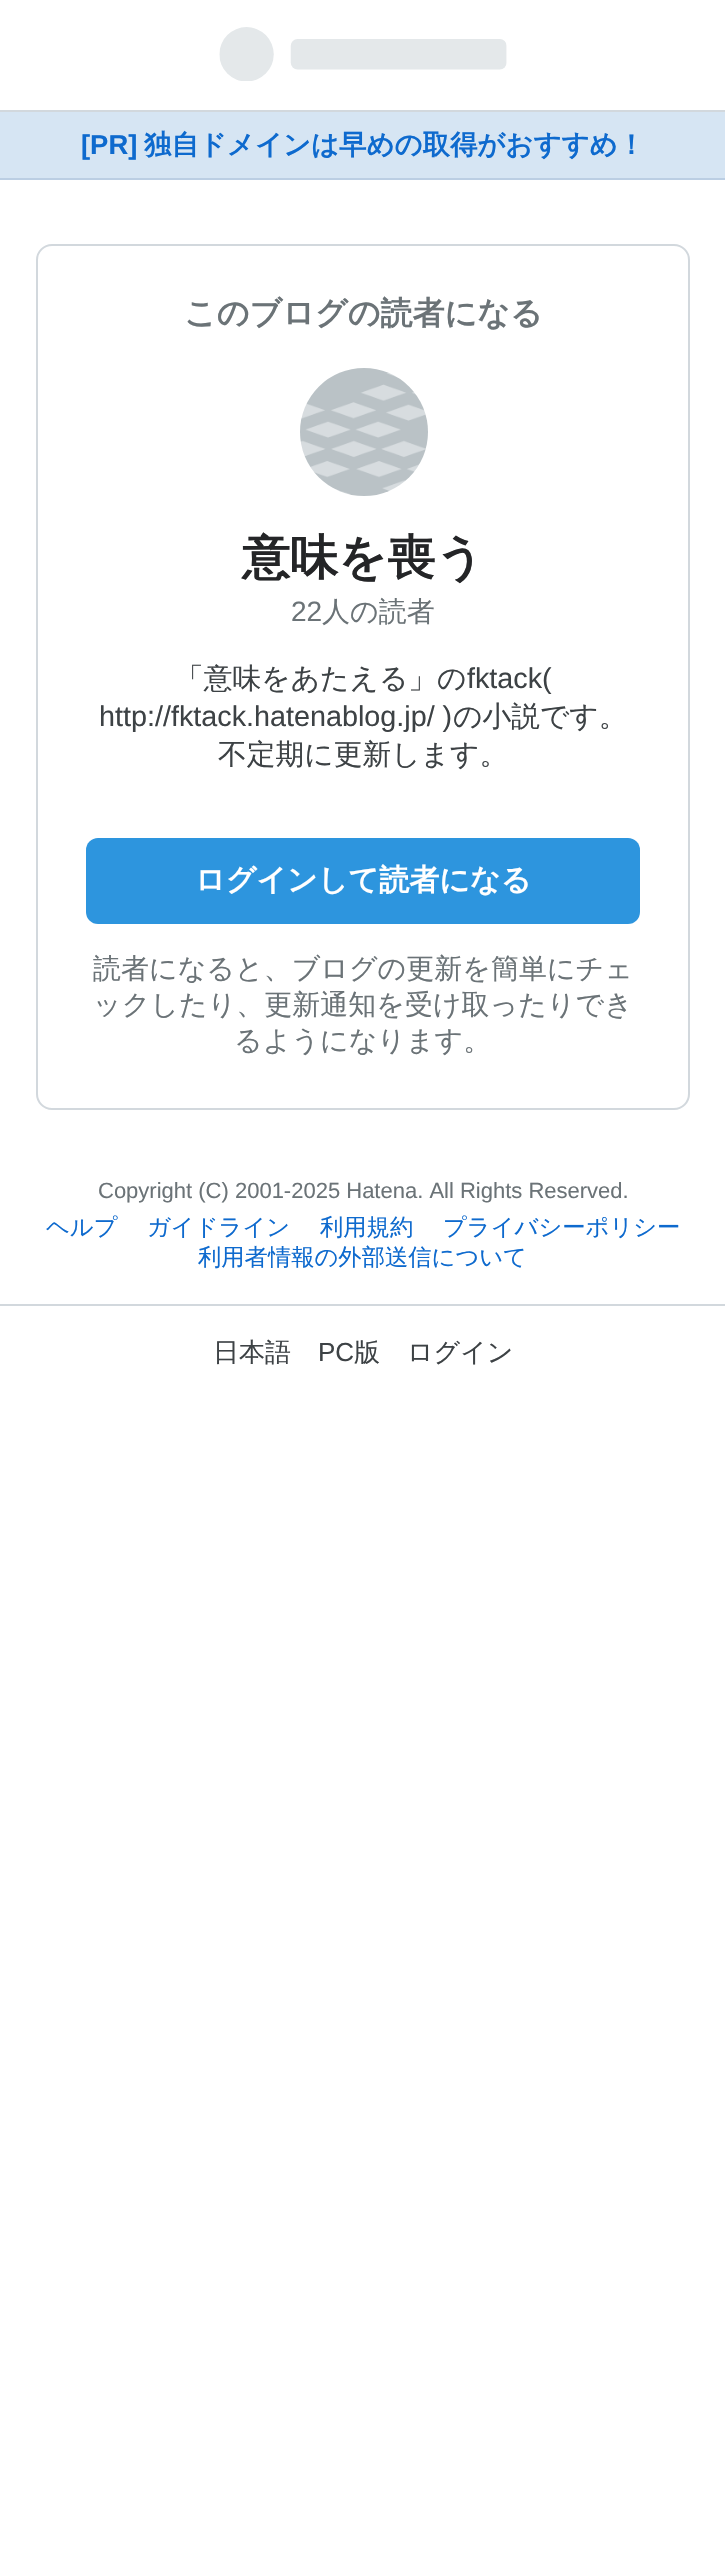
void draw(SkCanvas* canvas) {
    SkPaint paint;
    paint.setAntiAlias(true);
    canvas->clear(0xFFFFFFFF);
    paint.setColor(0xFFD2D8DD);
    canvas->drawRect(SkRect::MakeXYWH(0, 110, 725, 2), paint);
    canvas->drawImageRect(SkImages::DeferredFromEncodedData(SkData::MakeFromFileName("img1.png")), SkRect::MakeXYWH(219, 27, 288, 54), SkSamplingOptions());
    paint.setColor(0xFFD6E5F3);
    canvas->drawRect(SkRect::MakeXYWH(0, 112, 725, 66), paint);
    paint.setColor(0xFFBBCEE3);
    canvas->drawRect(SkRect::MakeXYWH(0, 178, 725, 2), paint);
    SkFont font1(fontMgr->matchFamilyStyle("Liberation Sans", SkFontStyle::Bold()), 27.4f);
    font1.setSubpixel(true);
    paint.setColor(0xFF0E6ACE);
    canvas->drawString("[PR]", 81, 154, font1, paint);
    SkFont font2(fontMgr->matchFamilyStyle("WenQuanYi Zen Hei", SkFontStyle::Bold()), 27.4f);
    font2.setSubpixel(true);
    canvas->drawString("独自ドメインは早めの取得がおすすめ！", 144, 154, font2, paint);
    paint.setStyle(SkPaint::kStroke_Style);
    paint.setStrokeWidth(2);
    paint.setColor(0xFFD2D8DD);
    canvas->drawRoundRect(SkRect::MakeXYWH(37, 245, 652, 864), 15, 15, paint);
    SkFont font3(fontMgr->matchFamilyStyle("WenQuanYi Zen Hei", SkFontStyle::Bold()), 32);
    font3.setSubpixel(true);
    paint.setStyle(SkPaint::kFill_Style);
    paint.setColor(0xFF6B7377);
    canvas->drawString("このブログの読者になる", 184, 324, font3, paint);
    canvas->drawImageRect(SkImages::DeferredFromEncodedData(SkData::MakeFromFileName("img2.png")), SkRect::MakeXYWH(300, 368, 128, 128), SkSamplingOptions());
    SkFont font4(fontMgr->matchFamilyStyle("WenQuanYi Zen Hei", SkFontStyle::Bold()), 48);
    font4.setSubpixel(true);
    paint.setColor(0xFF242527);
    canvas->drawString("意味を喪う", 242, 574, font4, paint);
    SkFont font5(fontMgr->matchFamilyStyle("Liberation Sans", SkFontStyle::Normal()), 28);
    font5.setSubpixel(true);
    paint.setColor(0xFF6B7377);
    canvas->drawString("22", 291, 621, font5, paint);
    SkFont font6(fontMgr->matchFamilyStyle("WenQuanYi Zen Hei", SkFontStyle(500, SkFontStyle::kNormal_Width, SkFontStyle::kUpright_Slant)), 28);
    font6.setSubpixel(true);
    canvas->drawString("人の読者", 322, 621, font6, paint);
    SkFont font7(fontMgr->matchFamilyStyle("WenQuanYi Zen Hei", SkFontStyle(500, SkFontStyle::kNormal_Width, SkFontStyle::kUpright_Slant)), 28.75f);
    font7.setSubpixel(true);
    paint.setColor(0xFF3D4245);
    canvas->drawString("「意味をあたえる」の", 175, 688, font7, paint);
    SkFont font8(fontMgr->matchFamilyStyle("Liberation Sans", SkFontStyle::Normal()), 28.75f);
    font8.setSubpixel(true);
    canvas->drawString("fktack(", 467, 688, font8, paint);
    canvas->drawString("http://fktack.hatenablog.jp/ )", 99, 726, font8, paint);
    canvas->drawString("の小説です。", 453, 726, font7, paint);
    canvas->drawString("不定期に更新します。", 218, 764, font7, paint);
    paint.setColor(0xFF2D95DE);
    canvas->drawRoundRect(SkRect::MakeXYWH(86, 838, 554, 86), 12, 12, paint);
    SkFont font9(fontMgr->matchFamilyStyle("WenQuanYi Zen Hei", SkFontStyle::Bold()), 30);
    font9.setSubpixel(true);
    paint.setColor(0xFFFFFFFF);
    canvas->drawString("ログインして読者になる", 195, 890, font9, paint);
    paint.setColor(0xFF6B7377);
    canvas->drawString("読者になると、ブログの更新を簡単にチェ", 93, 978, font6, paint);
    canvas->drawString("ックしたり、更新通知を受け取ったりでき", 93, 1014, font6, paint);
    canvas->drawString("るようになります。", 234, 1050, font6, paint);
    SkFont font10(fontMgr->matchFamilyStyle("Liberation Sans", SkFontStyle::Normal()), 22);
    font10.setSubpixel(true);
    canvas->drawString("Copyright (C) 2001-2025 Hatena. All Rights Reserved.", 98, 1198, font10, paint);
    SkFont font11(fontMgr->matchFamilyStyle("WenQuanYi Zen Hei", SkFontStyle(500, SkFontStyle::kNormal_Width, SkFontStyle::kUpright_Slant)), 23.3f);
    font11.setSubpixel(true);
    paint.setColor(0xFF0E6ACE);
    canvas->drawString("ヘルプ", 46, 1235, font11, paint);
    canvas->drawString("ガイドライン", 147, 1235, font11, paint);
    canvas->drawString("利用規約", 320, 1235, font11, paint);
    canvas->drawString("プライバシーポリシー", 443, 1235, font11, paint);
    canvas->drawString("利用者情報の外部送信について", 198, 1265, font11, paint);
    paint.setColor(0xFFD2D8DD);
    canvas->drawRect(SkRect::MakeXYWH(0, 1304, 725, 2), paint);
    SkFont font12(fontMgr->matchFamilyStyle("WenQuanYi Zen Hei", SkFontStyle(500, SkFontStyle::kNormal_Width, SkFontStyle::kUpright_Slant)), 26);
    font12.setSubpixel(true);
    paint.setColor(0xFF3D4245);
    canvas->drawString("日本語", 213, 1361, font12, paint);
    SkFont font13(fontMgr->matchFamilyStyle("Liberation Sans", SkFontStyle::Normal()), 26);
    font13.setSubpixel(true);
    canvas->drawString("PC", 318, 1361, font13, paint);
    canvas->drawString("版", 354, 1361, font12, paint);
    canvas->drawString("ログイン", 407, 1361, font12, paint);
}
